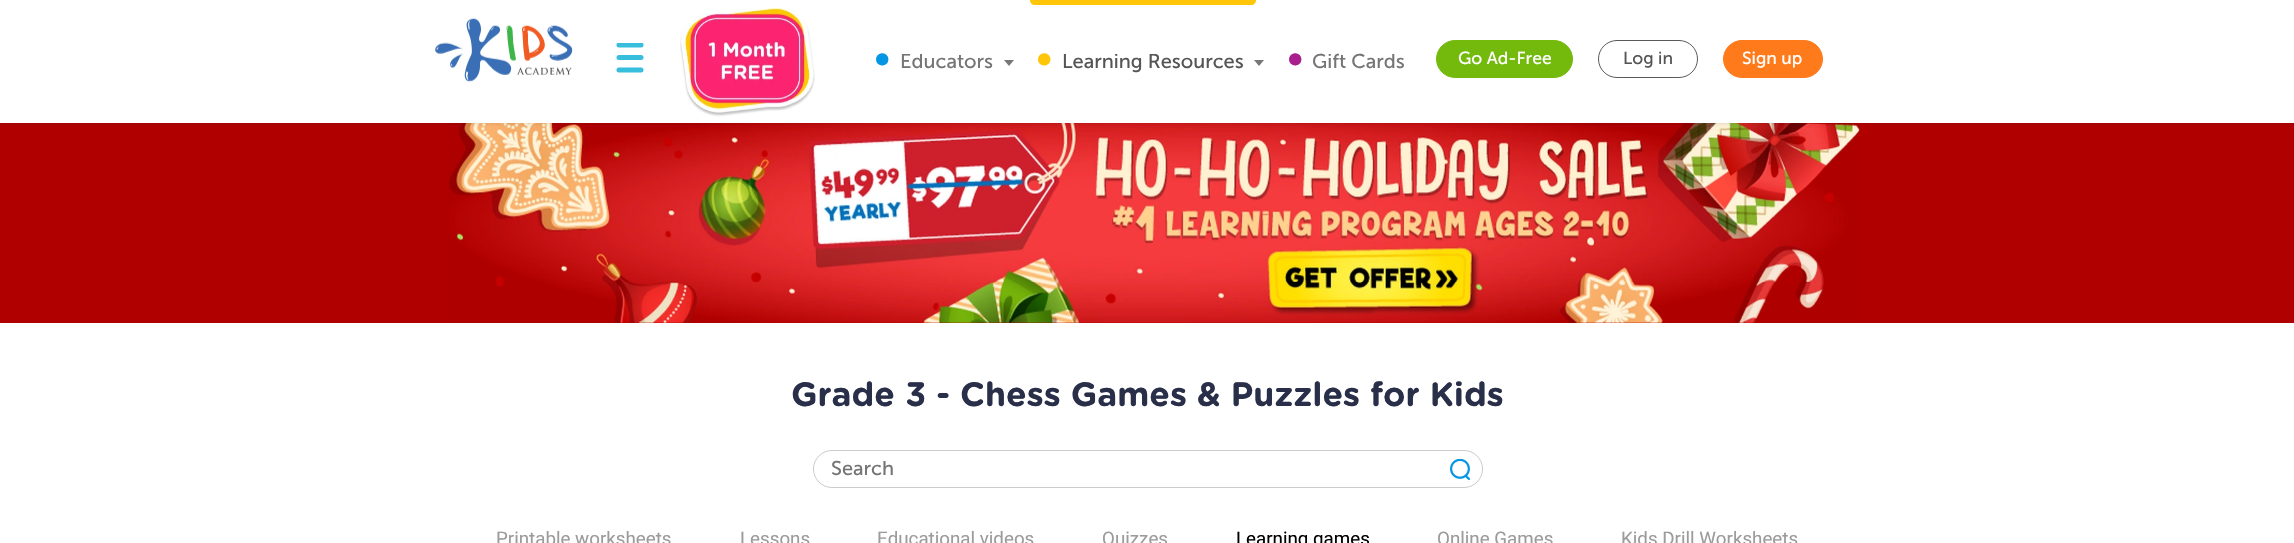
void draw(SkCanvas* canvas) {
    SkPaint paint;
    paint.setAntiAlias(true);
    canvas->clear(0xFFFFFFFF);
    paint.setColor(0xFFB10000);
    canvas->drawRect(SkRect::MakeXYWH(0, 123, 2294, 200), paint);
    canvas->drawImageRect(SkImages::DeferredFromEncodedData(SkData::MakeFromFileName("img3.png")), SkRect::MakeXYWH(448, 123, 1412, 200), SkSamplingOptions());
    canvas->save();
    canvas->clipPath(SkPathBuilder(SkPathFillType::kEvenOdd).moveTo(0, 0).lineTo(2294, 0).lineTo(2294, 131).lineTo(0, 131).close().moveTo(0, 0).lineTo(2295, 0).lineTo(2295, 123).lineTo(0, 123).close().detach(), true);
    paint.setColor(0x1A000000);
    paint.setMaskFilter(SkMaskFilter::MakeBlur(kNormal_SkBlurStyle, 2));
    canvas->drawRect(SkRect::MakeXYWH(-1, -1, 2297, 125), paint);
    paint.setMaskFilter(nullptr);
    canvas->restore();
    paint.setColor(0xFFFFFFFF);
    canvas->drawRoundRect(SkRect::MakeXYWH(0, 0, 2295, 123), 5, 5, paint);
    canvas->drawImageRect(SkImages::DeferredFromEncodedData(SkData::MakeFromFileName("img1.png")), SkRect::MakeXYWH(435, 18, 138, 64), SkSamplingOptions());
    canvas->save();
    canvas->clipRect(SkRect::MakeXYWH(616, 43, 28, 30));
    paint.setStyle(SkPaint::kStroke_Style);
    paint.setStrokeWidth(5);
    paint.setStrokeCap(SkPaint::kRound_Cap);
    paint.setColor(0xFF36BEDC);
    canvas->drawPath(SkPathBuilder().moveTo(619, 45).lineTo(641, 45).detach(), paint);
    canvas->restore();
    canvas->drawPath(SkPathBuilder().moveTo(619, 57.5f).lineTo(641, 57.5f).moveTo(619, 70).lineTo(641, 70).detach(), paint);
    canvas->drawImageRect(SkImages::DeferredFromEncodedData(SkData::MakeFromFileName("img2.png")), SkRect::MakeXYWH(680, 8, 135, 109), SkSamplingOptions());
    SkFont font1(fontMgr->matchFamilyStyle("Museo Sans", SkFontStyle::Normal()), 40);
    font1.setSubpixel(true);
    paint.setStyle(SkPaint::kFill_Style);
    paint.setColor(0xFF0595E5);
    canvas->drawString("•", 874, 71, font1, paint);
    SkFont font2(fontMgr->matchFamilyStyle("Museo Sans", SkFontStyle::Normal()), 20);
    font2.setSubpixel(true);
    paint.setColor(0xFF757575);
    canvas->drawString("Educators", 900, 68, font2, paint);
    paint.setColor(0xFF777777);
    canvas->drawPath(SkPathBuilder().moveTo(1004, 60).lineTo(1014, 60).lineTo(1009, 66).close().detach(), paint);
    paint.setColor(0xFFFFC509);
    canvas->drawPath(SkPathBuilder().moveTo(1030, -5).lineTo(1256, -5).lineTo(1256, 0).cubicTo(1256, 3, 1254, 5, 1251, 5).lineTo(1035, 5).cubicTo(1032, 5, 1030, 3, 1030, 0).close().detach(), paint);
    canvas->drawString("•", 1036, 71, font1, paint);
    paint.setColor(0xFF555555);
    canvas->drawString("Learning Resources", 1062, 68, font2, paint);
    paint.setColor(0xFF777777);
    canvas->drawPath(SkPathBuilder().moveTo(1254, 60).lineTo(1264, 60).lineTo(1259, 66).close().detach(), paint);
    paint.setColor(0xFFA91F8D);
    canvas->drawString("•", 1287, 71, font1, paint);
    paint.setColor(0xFF757575);
    canvas->drawString("Gift Cards", 1312, 68, font2, paint);
    paint.setColor(0xFF73BA0C);
    canvas->drawRoundRect(SkRect::MakeXYWH(1436.5f, 40.5f, 136, 37), 18.5f, 18.5f, paint);
    paint.setStyle(SkPaint::kStroke_Style);
    paint.setStrokeWidth(1);
    paint.setStrokeCap(SkPaint::kButt_Cap);
    canvas->drawRoundRect(SkRect::MakeXYWH(1436.5f, 40.5f, 136, 37), 18.5f, 18.5f, paint);
    SkFont font3(fontMgr->matchFamilyStyle("Museo Sans", SkFontStyle::Normal()), 17.5f);
    font3.setSubpixel(true);
    paint.setStyle(SkPaint::kFill_Style);
    paint.setColor(0xFFFFFFFF);
    canvas->drawString("Go Ad-Free", 1458, 64, font3, paint);
    paint.setStyle(SkPaint::kStroke_Style);
    paint.setColor(0xFF595959);
    canvas->drawRoundRect(SkRect::MakeXYWH(1598.5f, 40.5f, 99, 37), 18.5f, 18.5f, paint);
    paint.setStyle(SkPaint::kFill_Style);
    paint.setColor(0xFF555555);
    canvas->drawString("Log in", 1623, 64, font3, paint);
    paint.setColor(0xFFFF7A1A);
    canvas->drawRoundRect(SkRect::MakeXYWH(1723.5f, 40.5f, 99, 37), 18.5f, 18.5f, paint);
    paint.setStyle(SkPaint::kStroke_Style);
    canvas->drawRoundRect(SkRect::MakeXYWH(1723.5f, 40.5f, 99, 37), 18.5f, 18.5f, paint);
    paint.setStyle(SkPaint::kFill_Style);
    paint.setColor(0xFFFFFFFF);
    canvas->drawString("Sign up", 1742, 64, font3, paint);
    SkFont font4(fontMgr->matchFamilyStyle("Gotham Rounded", SkFontStyle::Bold()), 33.75f);
    font4.setSubpixel(true);
    paint.setColor(0xFF292E49);
    canvas->drawString("Grade 3 - Chess Games & Puzzles for Kids", 791, 406, font4, paint);
    paint.setStyle(SkPaint::kStroke_Style);
    paint.setColor(0xFFCCCCCC);
    canvas->drawRoundRect(SkRect::MakeXYWH(813.5f, 450.5f, 669, 37), 18.5f, 18.5f, paint);
    paint.setStyle(SkPaint::kFill_Style);
    paint.setColor(0xFF757575);
    canvas->drawString("Search", 831, 475, font2, paint);
    canvas->drawImageRect(SkImages::DeferredFromEncodedData(SkData::MakeFromFileName("img4.png")), SkRect::MakeXYWH(1450, 459, 20, 21), SkSamplingOptions());
    SkFont font5(fontMgr->matchFamilyStyle("Roboto", SkFontStyle::Normal()), 18.75f);
    font5.setSubpixel(true);
    paint.setColor(0xFF9B9B9B);
    canvas->drawString("Printable worksheets", 496, 545, font5, paint);
    canvas->drawString("Lessons", 740, 545, font5, paint);
    canvas->drawString("Educational videos", 877, 545, font5, paint);
    canvas->drawString("Quizzes", 1102, 545, font5, paint);
    paint.setColor(0xFF000000);
    canvas->drawString("Learning games", 1236, 545, font5, paint);
    paint.setColor(0xFF9B9B9B);
    canvas->drawString("Online Games", 1437, 545, font5, paint);
    canvas->drawString("Kids Drill Worksheets", 1621, 545, font5, paint);
}
